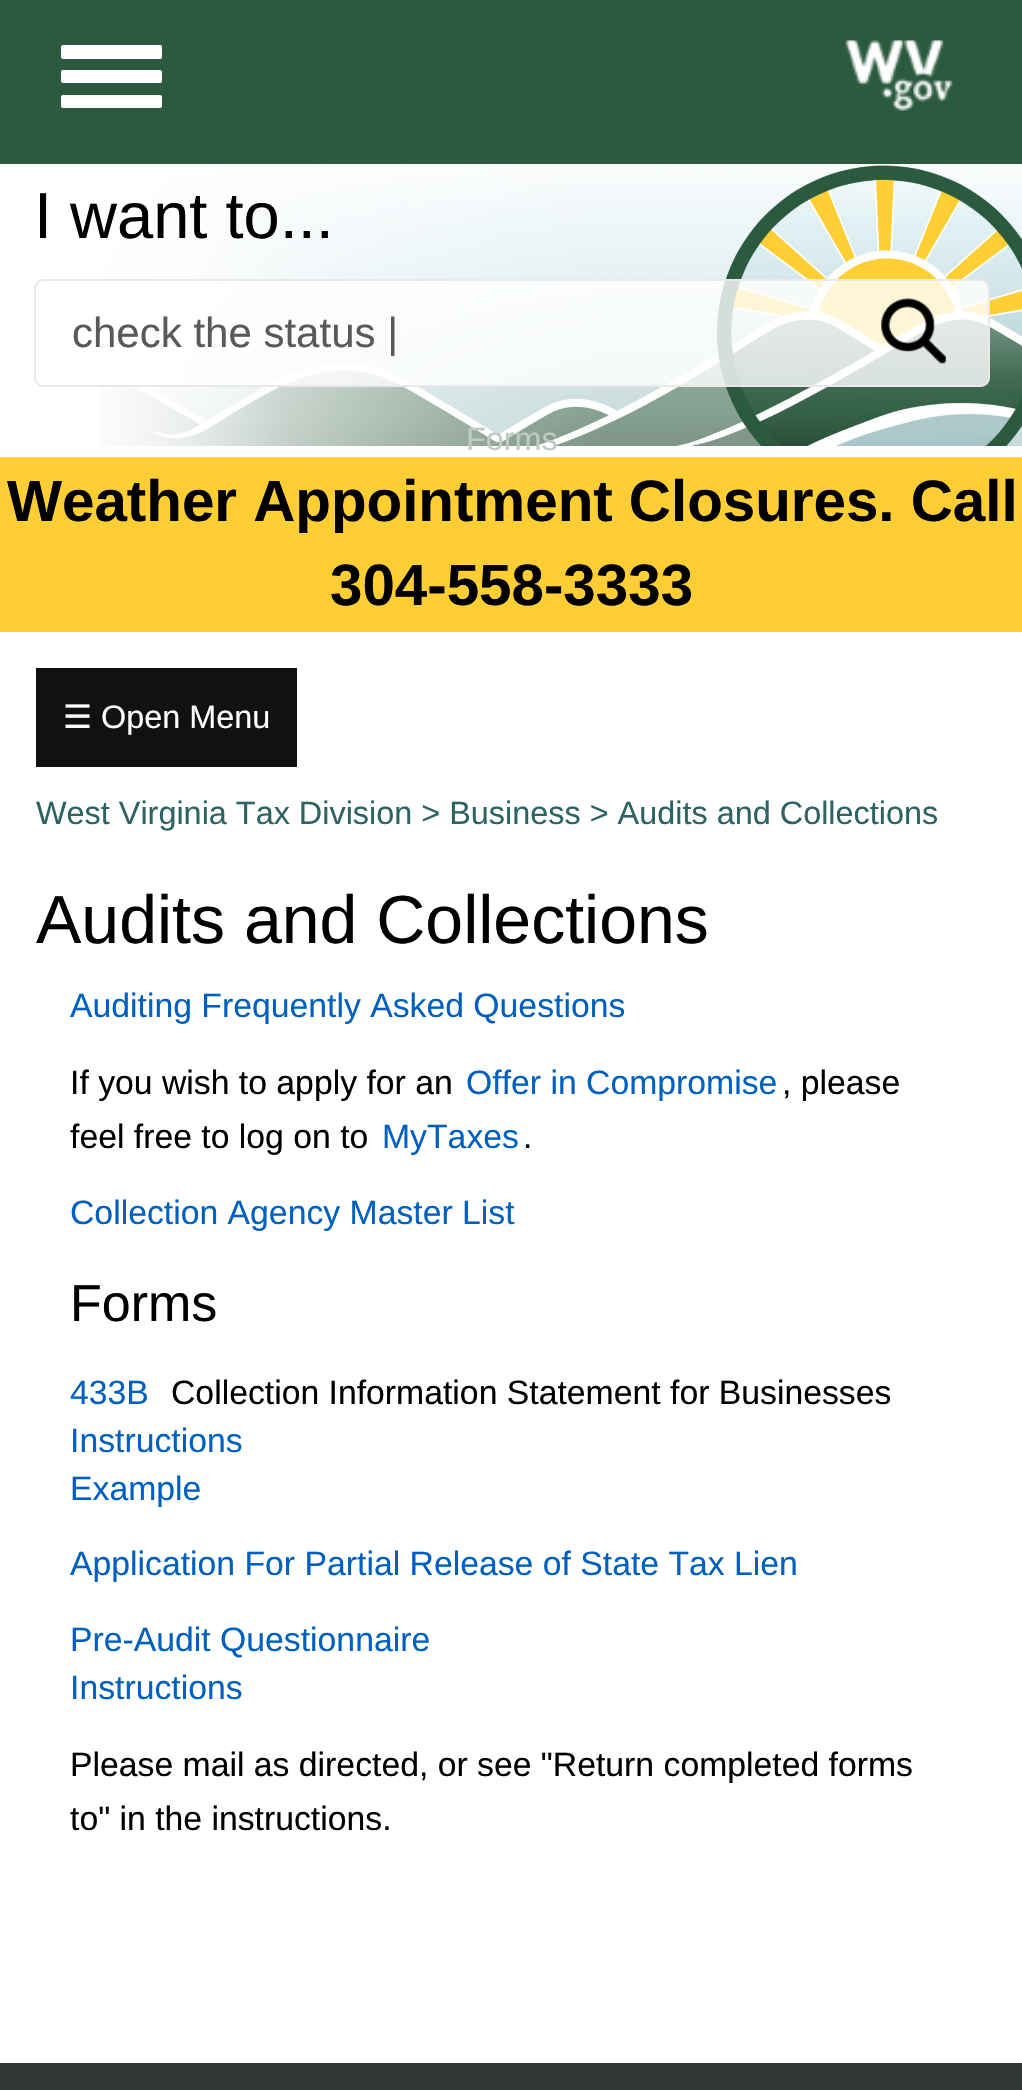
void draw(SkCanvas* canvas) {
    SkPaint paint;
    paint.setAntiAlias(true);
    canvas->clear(0xFFFFFFFF);
    paint.setColor(0xFF2B5A3F);
    canvas->drawRect(SkRect::MakeXYWH(0, 0, 1022, 164), paint);
    paint.setColor(0xFFFFFFFF);
    canvas->drawRoundRect(SkRect::MakeXYWH(61, 45, 101, 14), 2, 2, paint);
    canvas->drawRoundRect(SkRect::MakeXYWH(61, 70, 101, 13), 2, 2, paint);
    canvas->drawRoundRect(SkRect::MakeXYWH(61, 95, 101, 13), 2, 2, paint);
    canvas->drawImageRect(SkImages::DeferredFromEncodedData(SkData::MakeFromFileName("img1.png")), SkRect::MakeXYWH(845, 40, 108, 71), SkSamplingOptions());
    canvas->drawImageRect(SkImages::DeferredFromEncodedData(SkData::MakeFromFileName("img2.png")), SkRect::MakeXYWH(100, 164, 922, 282), SkSamplingOptions());
    SkFont font1(fontMgr->matchFamilyStyle("Liberation Sans", SkFontStyle::Normal()), 65);
    font1.setSubpixel(true);
    paint.setColor(0xFF000000);
    canvas->drawString("I want to...", 34, 238, font1, paint);
    paint.setColor(0xCCFFFFFF);
    canvas->drawRoundRect(SkRect::MakeXYWH(35, 280, 954, 106), 8, 8, paint);
    paint.setStyle(SkPaint::kStroke_Style);
    paint.setStrokeWidth(2);
    paint.setColor(0xFFEAE8E8);
    canvas->drawRoundRect(SkRect::MakeXYWH(35, 280, 954, 106), 8, 8, paint);
    SkFont font2(fontMgr->matchFamilyStyle("Liberation Sans", SkFontStyle::Normal()), 42);
    font2.setSubpixel(true);
    paint.setStyle(SkPaint::kFill_Style);
    paint.setColor(0xFF58595B);
    canvas->drawString("check the status |", 72, 347, font2, paint);
    canvas->drawImageRect(SkImages::DeferredFromEncodedData(SkData::MakeFromFileName("img3.png")), SkRect::MakeXYWH(881, 298, 65, 66), SkSamplingOptions());
    SkFont font3(fontMgr->matchFamilyStyle("Liberation Sans", SkFontStyle::Normal()), 32.4f);
    font3.setSubpixel(true);
    paint.setColor(0xFFBECBC3);
    canvas->drawString("Forms", 466, 450, font3, paint);
    paint.setColor(0xFFFFCD34);
    canvas->drawRect(SkRect::MakeXYWH(0, 457, 1022, 175), paint);
    SkFont font4(fontMgr->matchFamilyStyle("Liberation Sans", SkFontStyle::Bold()), 58.3f);
    font4.setSubpixel(true);
    paint.setColor(0xFF000000);
    canvas->drawString("Weather Appointment Closures. Call", 7, 521, font4, paint);
    canvas->drawString("304-558-3333", 330, 605, font4, paint);
    paint.setColor(0xFF111111);
    canvas->drawRect(SkRect::MakeXYWH(36, 668, 261, 99), paint);
    SkFont font5(fontMgr->matchFamilyStyle("DejaVu Sans", SkFontStyle::Normal()), 32.4f);
    font5.setSubpixel(true);
    paint.setColor(0xFFFFFFFF);
    canvas->drawString("☰", 63, 728, font5, paint);
    canvas->drawString("Open Menu", 101, 728, font3, paint);
    paint.setColor(0xFF2E6364);
    canvas->drawString("West Virginia Tax Division > Business > Audits and Collections", 36, 824, font3, paint);
    SkFont font6(fontMgr->matchFamilyStyle("Liberation Sans", SkFontStyle::Normal()), 68);
    font6.setSubpixel(true);
    paint.setColor(0xFF000000);
    canvas->drawString("Audits and Collections", 36, 943, font6, paint);
    SkFont font7(fontMgr->matchFamilyStyle("Liberation Sans", SkFontStyle::Normal()), 33.75f);
    font7.setSubpixel(true);
    paint.setColor(0xFF0060C0);
    canvas->drawString("Auditing Frequently Asked Questions", 70, 1017, font7, paint);
    paint.setColor(0xFF000000);
    canvas->drawString("If you wish to apply for an", 70, 1094, font7, paint);
    paint.setColor(0xFF0060C0);
    canvas->drawString("Offer in Compromise", 466, 1094, font7, paint);
    paint.setColor(0xFF000000);
    canvas->drawString(", please", 782, 1094, font7, paint);
    canvas->drawString("feel free to log on to", 70, 1148, font7, paint);
    paint.setColor(0xFF0060C0);
    canvas->drawString("MyTaxes", 382, 1148, font7, paint);
    paint.setColor(0xFF000000);
    canvas->drawString(".", 523, 1148, font7, paint);
    paint.setColor(0xFF0060C0);
    canvas->drawString("Collection Agency Master List", 70, 1224, font7, paint);
    SkFont font8(fontMgr->matchFamilyStyle("Liberation Sans", SkFontStyle::Normal()), 52);
    font8.setSubpixel(true);
    paint.setColor(0xFF000000);
    canvas->drawString("Forms", 70, 1321, font8, paint);
    paint.setColor(0xFF0060C0);
    canvas->drawString("433B", 70, 1404, font7, paint);
    paint.setColor(0xFF000000);
    canvas->drawString("Collection Information Statement for Businesses", 171, 1404, font7, paint);
    paint.setColor(0xFF0060C0);
    canvas->drawString("Instructions", 70, 1452, font7, paint);
    canvas->drawString("Example", 70, 1500, font7, paint);
    canvas->drawString("Application For Partial Release of State Tax Lien", 70, 1575, font7, paint);
    canvas->drawString("Pre-Audit Questionnaire", 70, 1651, font7, paint);
    canvas->drawString("Instructions", 70, 1699, font7, paint);
    paint.setColor(0xFF000000);
    canvas->drawString("Please mail as directed, or see \"Return completed forms", 70, 1776, font7, paint);
    canvas->drawString("to\" in the instructions.", 70, 1830, font7, paint);
    paint.setColor(0xFF313533);
    canvas->drawRect(SkRect::MakeXYWH(0, 2063, 1022, 27), paint);
}
